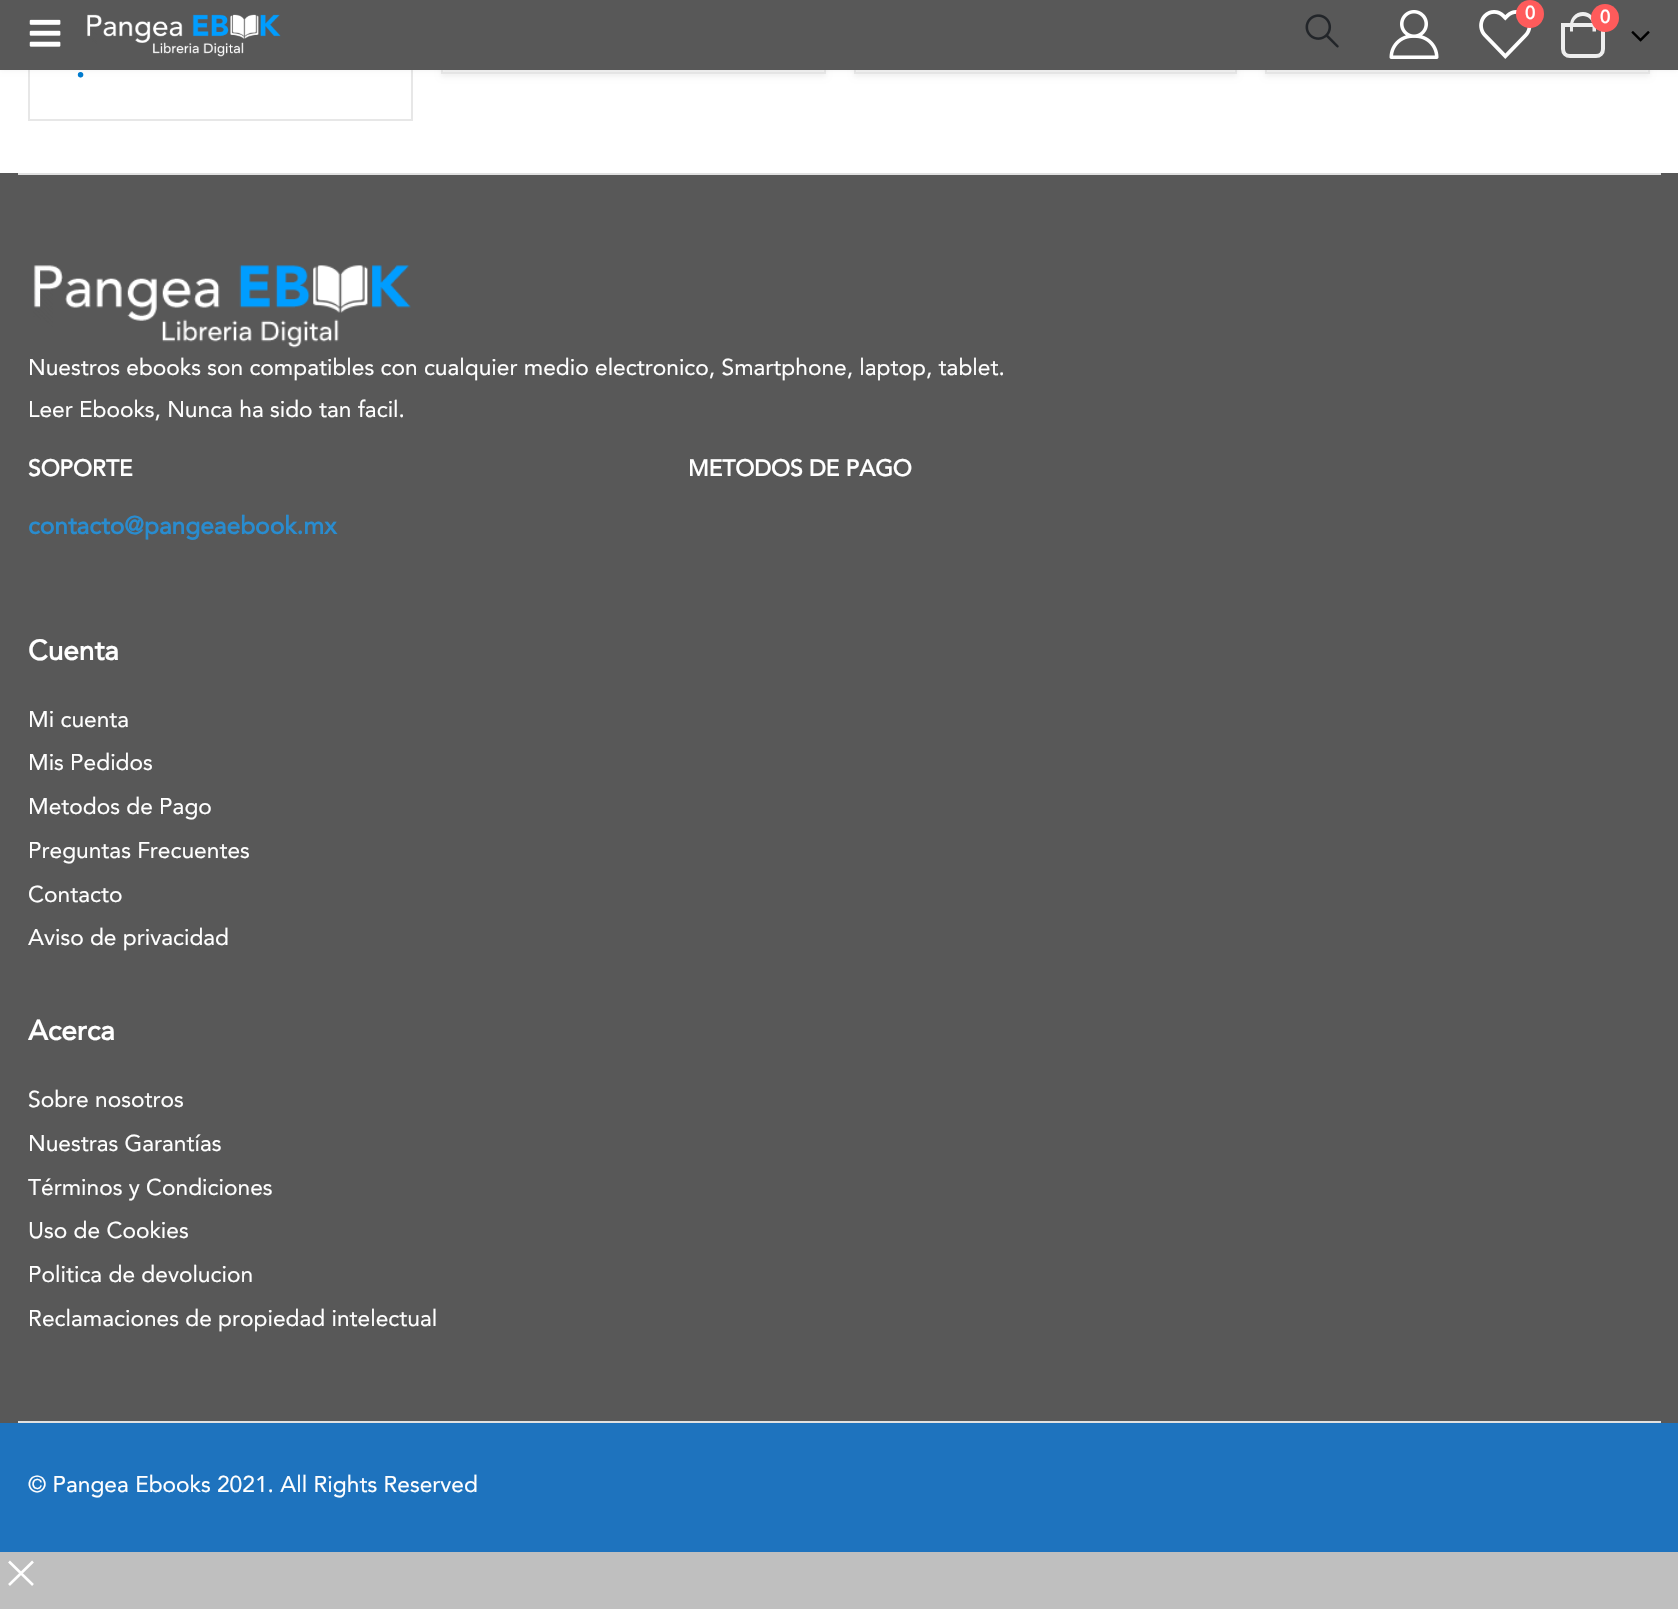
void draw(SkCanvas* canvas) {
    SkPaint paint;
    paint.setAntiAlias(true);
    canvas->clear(0xFFBFBFBF);
    paint.setColor(0xFFFFFFFF);
    canvas->drawRect(SkRect::MakeXYWH(0, 70, 1678, 103), paint);
    paint.setStyle(SkPaint::kStroke_Style);
    paint.setStrokeWidth(2);
    paint.setColor(0xFFE7E7E7);
    canvas->drawRect(SkRect::MakeXYWH(29, -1, 383, 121), paint);
    paint.setStyle(SkPaint::kFill_Style);
    paint.setColor(0x0D000000);
    paint.setMaskFilter(SkMaskFilter::MakeBlur(kNormal_SkBlurStyle, 2.5f));
    canvas->drawRect(SkRect::MakeXYWH(441, -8, 385, 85), paint);
    paint.setMaskFilter(nullptr);
    paint.setStyle(SkPaint::kStroke_Style);
    paint.setColor(0xFFE7E7E7);
    canvas->drawRect(SkRect::MakeXYWH(442, -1, 383, 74), paint);
    paint.setStyle(SkPaint::kFill_Style);
    paint.setColor(0x0D000000);
    paint.setMaskFilter(SkMaskFilter::MakeBlur(kNormal_SkBlurStyle, 2.5f));
    canvas->drawRect(SkRect::MakeXYWH(854, -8, 383, 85), paint);
    paint.setMaskFilter(nullptr);
    paint.setStyle(SkPaint::kStroke_Style);
    paint.setColor(0xFFE7E7E7);
    canvas->drawRect(SkRect::MakeXYWH(855, -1, 381, 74), paint);
    paint.setStyle(SkPaint::kFill_Style);
    paint.setColor(0x0D000000);
    paint.setMaskFilter(SkMaskFilter::MakeBlur(kNormal_SkBlurStyle, 2.5f));
    canvas->drawRect(SkRect::MakeXYWH(1265, -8, 385, 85), paint);
    paint.setMaskFilter(nullptr);
    paint.setStyle(SkPaint::kStroke_Style);
    paint.setColor(0xFFE7E7E7);
    canvas->drawRect(SkRect::MakeXYWH(1266, -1, 383, 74), paint);
    paint.setStyle(SkPaint::kFill_Style);
    paint.setColor(0x0F000000);
    paint.setMaskFilter(SkMaskFilter::MakeBlur(kNormal_SkBlurStyle, 2.5f));
    canvas->drawRect(SkRect::MakeXYWH(0, 0, 1678, 70), paint);
    paint.setMaskFilter(nullptr);
    paint.setColor(0xFF585858);
    canvas->drawRect(SkRect::MakeXYWH(0, 0, 1678, 70), paint);
    canvas->drawImageRect(SkImages::DeferredFromEncodedData(SkData::MakeFromFileName("img1.png")), SkRect::MakeXYWH(29, 19, 32, 28), SkSamplingOptions());
    canvas->drawImageRect(SkImages::DeferredFromEncodedData(SkData::MakeFromFileName("img2.png")), SkRect::MakeXYWH(87, 14, 194, 43), SkSamplingOptions());
    canvas->drawImageRect(SkImages::DeferredFromEncodedData(SkData::MakeFromFileName("img3.png")), SkRect::MakeXYWH(1305, 14, 34, 34), SkSamplingOptions());
    canvas->drawImageRect(SkImages::DeferredFromEncodedData(SkData::MakeFromFileName("img4.png")), SkRect::MakeXYWH(1389, 10, 50, 49), SkSamplingOptions());
    canvas->drawImageRect(SkImages::DeferredFromEncodedData(SkData::MakeFromFileName("img5.png")), SkRect::MakeXYWH(1479, 10, 53, 49), SkSamplingOptions());
    paint.setColor(0xFFFF5B5B);
    canvas->drawCircle(1530, 14, 14, paint);
    SkFont font1(fontMgr->matchFamilyStyle("Avenir", SkFontStyle::Bold()), 18);
    font1.setSubpixel(true);
    paint.setColor(0xFFFFFFFF);
    canvas->drawString("0", 1525, 19, font1, paint);
    paint.setStyle(SkPaint::kStroke_Style);
    paint.setStrokeWidth(4);
    paint.setColor(0xFFEEEEEE);
    canvas->drawPath(SkPathBuilder().moveTo(1563, 25).lineTo(1603, 25).lineTo(1603, 49).cubicTo(1603, 53, 1600, 56, 1596, 56).lineTo(1570, 56).cubicTo(1566, 56, 1563, 53, 1563, 49).close().detach(), paint);
    paint.setStyle(SkPaint::kFill_Style);
    canvas->drawPath(SkPathBuilder(SkPathFillType::kEvenOdd).moveTo(1583, 12).cubicTo(1590, 12, 1596, 18, 1596, 25.5f).lineTo(1596, 31.5f).lineTo(1570, 31.5f).lineTo(1570, 25.5f).cubicTo(1570, 18, 1575.5f, 12, 1583, 12).close().moveTo(1583, 16).cubicTo(1588, 16, 1592.5f, 20, 1592.5f, 25.5f).lineTo(1592.5f, 31.5f).lineTo(1573, 31.5f).lineTo(1573, 25.5f).cubicTo(1573, 20, 1577.5f, 16, 1583, 16).close().detach(), paint);
    paint.setColor(0xFFFF5B5B);
    canvas->drawCircle(1605, 18, 14, paint);
    paint.setColor(0xFFFFFFFF);
    canvas->drawString("0", 1600, 23, font1, paint);
    canvas->drawImageRect(SkImages::DeferredFromEncodedData(SkData::MakeFromFileName("img6.png")), SkRect::MakeXYWH(1631, 31, 19, 11), SkSamplingOptions());
    SkFont font2(fontMgr->matchFamilyStyle("Open Sans", SkFontStyle::Bold()), 32);
    font2.setSubpixel(true);
    paint.setColor(0xFF007BCE);
    canvas->drawString(".", 76, 77, font2, paint);
    paint.setColor(0xFF585858);
    canvas->drawRect(SkRect::MakeXYWH(0, 173, 1678, 1250), paint);
    paint.setColor(0xFFE1E1E1);
    canvas->drawRect(SkRect::MakeXYWH(18, 173, 1643, 2), paint);
    canvas->drawImageRect(SkImages::DeferredFromEncodedData(SkData::MakeFromFileName("img7.png")), SkRect::MakeXYWH(33, 265, 378, 83), SkSamplingOptions());
    SkFont font3(fontMgr->matchFamilyStyle("Avenir", SkFontStyle::Normal()), 22.75f);
    font3.setSubpixel(true);
    paint.setColor(0xFFFFFFFF);
    canvas->drawString("Nuestros ebooks son compatibles con cualquier medio electronico, Smartphone, laptop, tablet.", 28, 375, font3, paint);
    canvas->drawString("Leer Ebooks, Nunca ha sido tan facil.", 28, 417, font3, paint);
    SkFont font4(fontMgr->matchFamilyStyle("Avenir", SkFontStyle::Bold()), 22.75f);
    font4.setSubpixel(true);
    canvas->drawString("SOPORTE", 28, 476, font4, paint);
    SkFont font5(fontMgr->matchFamilyStyle("Avenir", SkFontStyle::Bold()), 24.5f);
    font5.setSubpixel(true);
    paint.setColor(0xFF298CCF);
    canvas->drawString("contacto@pangeaebook.mx", 28, 534, font5, paint);
    paint.setColor(0xFFFFFFFF);
    canvas->drawString("METODOS DE PAGO", 688, 476, font4, paint);
    SkFont font6(fontMgr->matchFamilyStyle("Avenir", SkFontStyle::Bold()), 28);
    font6.setSubpixel(true);
    canvas->drawString("Cuenta", 28, 660, font6, paint);
    canvas->drawString("Mi cuenta", 28, 727, font3, paint);
    canvas->drawString("Mis Pedidos", 28, 770, font3, paint);
    canvas->drawString("Metodos de Pago", 28, 814, font3, paint);
    canvas->drawString("Preguntas Frecuentes", 28, 858, font3, paint);
    canvas->drawString("Contacto", 28, 902, font3, paint);
    canvas->drawString("Aviso de privacidad", 28, 945, font3, paint);
    canvas->drawString("Acerca", 28, 1040, font6, paint);
    canvas->drawString("Sobre nosotros", 28, 1107, font3, paint);
    canvas->drawString("Nuestras Garantías", 28, 1151, font3, paint);
    canvas->drawString("Términos y Condiciones", 28, 1195, font3, paint);
    canvas->drawString("Uso de Cookies", 28, 1238, font3, paint);
    canvas->drawString("Politica de devolucion", 28, 1282, font3, paint);
    canvas->drawString("Reclamaciones de propiedad intelectual", 28, 1326, font3, paint);
    paint.setColor(0xFFE1E1E1);
    canvas->drawRect(SkRect::MakeXYWH(18, 1421, 1643, 2), paint);
    paint.setColor(0xFF1E73BE);
    canvas->drawRect(SkRect::MakeXYWH(0, 1423, 1678, 129), paint);
    paint.setColor(0xFFFFFFFF);
    canvas->drawString("© Pangea Ebooks 2021. All Rights Reserved", 28, 1492, font3, paint);
    paint.setStyle(SkPaint::kStroke_Style);
    paint.setStrokeWidth(2.6f);
    canvas->drawPath(SkPathBuilder().moveTo(9, 1561.5f).lineTo(33, 1585).moveTo(9, 1585).lineTo(33, 1561.5f).detach(), paint);
}
